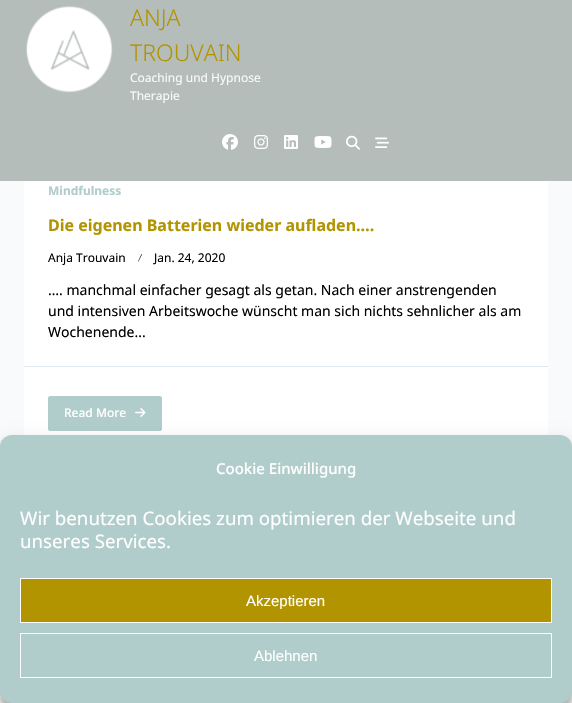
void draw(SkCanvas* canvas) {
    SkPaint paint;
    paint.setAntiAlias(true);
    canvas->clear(0xFFF8FAFC);
    paint.setColor(0xFFB5BDBA);
    canvas->drawRect(SkRect::MakeXYWH(0, 0, 572, 181), paint);
    canvas->drawImageRect(SkImages::DeferredFromEncodedData(SkData::MakeFromFileName("img1.png")), SkRect::MakeXYWH(222, 134, 16, 16), SkSamplingOptions());
    canvas->drawImageRect(SkImages::DeferredFromEncodedData(SkData::MakeFromFileName("img2.png")), SkRect::MakeXYWH(254, 135, 14, 14), SkSamplingOptions());
    canvas->drawImageRect(SkImages::DeferredFromEncodedData(SkData::MakeFromFileName("img3.png")), SkRect::MakeXYWH(284, 135, 14, 14), SkSamplingOptions());
    canvas->drawImageRect(SkImages::DeferredFromEncodedData(SkData::MakeFromFileName("img4.png")), SkRect::MakeXYWH(314, 136, 18, 12), SkSamplingOptions());
    canvas->drawImageRect(SkImages::DeferredFromEncodedData(SkData::MakeFromFileName("img5.png")), SkRect::MakeXYWH(346, 135, 14, 15), SkSamplingOptions());
    canvas->drawImageRect(SkImages::DeferredFromEncodedData(SkData::MakeFromFileName("img6.png")), SkRect::MakeXYWH(375, 137, 14, 11), SkSamplingOptions());
    canvas->drawImageRect(SkImages::DeferredFromEncodedData(SkData::MakeFromFileName("img7.png")), SkRect::MakeXYWH(26, 6, 87, 87), SkSamplingOptions());
    SkFont font1(fontMgr->matchFamilyStyle("Noto Sans", SkFontStyle(300, SkFontStyle::kNormal_Width, SkFontStyle::kUpright_Slant)), 23);
    font1.setSubpixel(true);
    paint.setColor(0xFFB29400);
    canvas->drawString("ANJA", 130, 26, font1, paint);
    canvas->drawString("TROUVAIN", 130, 61, font1, paint);
    SkFont font2(fontMgr->matchFamilyStyle("Noto Sans", SkFontStyle::Normal()), 12);
    font2.setSubpixel(true);
    paint.setColor(0xFFF8FAFC);
    canvas->drawString("Coaching und Hypnose", 130, 82, font2, paint);
    canvas->drawString("Therapie", 130, 100, font2, paint);
    paint.setColor(0xFFFFFFFF);
    canvas->drawRect(SkRect::MakeXYWH(24, 181, 524, 254), paint);
    SkFont font3(fontMgr->matchFamilyStyle("Noto Sans", SkFontStyle::Bold()), 12);
    font3.setSubpixel(true);
    paint.setColor(0xFFB0CDCB);
    canvas->drawString("Mindfulness", 48, 195, font3, paint);
    SkFont font4(fontMgr->matchFamilyStyle("Noto Sans", SkFontStyle::Bold()), 16);
    font4.setSubpixel(true);
    paint.setColor(0xFFB29400);
    canvas->drawString("Die eigenen Batterien wieder aufladen….", 48, 231, font4, paint);
    paint.setColor(0xFF000000);
    canvas->drawString("Anja Trouvain", 48, 262, font2, paint);
    canvas->drawPath(SkPathBuilder().moveTo(138, 261.5f).lineTo(141.5f, 254).lineTo(142, 254.5f).lineTo(138.5f, 261.5f).close().detach(), paint);
    canvas->drawString("Jan. 24, 2020", 154, 262, font2, paint);
    SkFont font5(fontMgr->matchFamilyStyle("Noto Sans", SkFontStyle::Normal()), 14);
    font5.setSubpixel(true);
    canvas->drawString("…. manchmal einfacher gesagt als getan. Nach einer anstrengenden", 48, 295, font5, paint);
    canvas->drawString("und intensiven Arbeitswoche wünscht man sich nichts sehnlicher als am", 48, 316, font5, paint);
    canvas->drawString("Wochenende...", 48, 337, font5, paint);
    paint.setColor(0xFFE2E8F0);
    canvas->drawRect(SkRect::MakeXYWH(24, 366, 524, 1), paint);
    paint.setColor(0xFFB0CDCB);
    canvas->drawRoundRect(SkRect::MakeXYWH(48.5f, 396.5f, 113, 34), 1.5f, 1.5f, paint);
    paint.setStyle(SkPaint::kStroke_Style);
    paint.setStrokeWidth(1);
    canvas->drawRoundRect(SkRect::MakeXYWH(48.5f, 396.5f, 113, 34), 1.5f, 1.5f, paint);
    SkFont font6(fontMgr->matchFamilyStyle("Noto Sans", SkFontStyle(500, SkFontStyle::kNormal_Width, SkFontStyle::kUpright_Slant)), 12);
    font6.setSubpixel(true);
    paint.setStyle(SkPaint::kFill_Style);
    paint.setColor(0xFFFFFFFF);
    canvas->drawString("Read More", 64, 417, font6, paint);
    canvas->drawImageRect(SkImages::DeferredFromEncodedData(SkData::MakeFromFileName("img8.png")), SkRect::MakeXYWH(135, 408, 11, 9), SkSamplingOptions());
    canvas->drawRect(SkRect::MakeXYWH(0, 691, 572, 12), paint);
    paint.setColor(0x3B000000);
    paint.setMaskFilter(SkMaskFilter::MakeBlur(kNormal_SkBlurStyle, 3));
    canvas->drawRoundRect(SkRect::MakeXYWH(0, 441, 572, 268), 12, 12, paint);
    paint.setMaskFilter(nullptr);
    paint.setColor(0x30000000);
    paint.setMaskFilter(SkMaskFilter::MakeBlur(kNormal_SkBlurStyle, 10));
    canvas->drawRoundRect(SkRect::MakeXYWH(0, 445, 572, 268), 12, 12, paint);
    paint.setMaskFilter(nullptr);
    paint.setColor(0xFFB0CDCB);
    canvas->drawRoundRect(SkRect::MakeXYWH(0, 435, 572, 268), 12, 12, paint);
    SkFont font7(fontMgr->matchFamilyStyle("Noto Sans", SkFontStyle(500, SkFontStyle::kNormal_Width, SkFontStyle::kUpright_Slant)), 15);
    font7.setSubpixel(true);
    paint.setColor(0xFFFFFFFF);
    canvas->drawString("Cookie Einwilligung", 216, 474, font7, paint);
    SkFont font8(fontMgr->matchFamilyStyle("Noto Sans", SkFontStyle::Normal()), 18.7f);
    font8.setSubpixel(true);
    canvas->drawString("Wir benutzen Cookies zum optimieren der Webseite und", 20, 525, font8, paint);
    canvas->drawString("unseres Services.", 20, 548, font8, paint);
    paint.setColor(0xFFB29400);
    canvas->drawRect(SkRect::MakeXYWH(20.5f, 578.5f, 531, 44), paint);
    paint.setStyle(SkPaint::kStroke_Style);
    paint.setColor(0xFFFFFFFF);
    canvas->drawRect(SkRect::MakeXYWH(20.5f, 578.5f, 531, 44), paint);
    SkFont font9(fontMgr->matchFamilyStyle("Liberation Sans", SkFontStyle::Normal()), 15);
    font9.setSubpixel(true);
    paint.setStyle(SkPaint::kFill_Style);
    canvas->drawString("Akzeptieren", 246, 606, font9, paint);
    paint.setStyle(SkPaint::kStroke_Style);
    canvas->drawRect(SkRect::MakeXYWH(20.5f, 633.5f, 531, 44), paint);
    paint.setStyle(SkPaint::kFill_Style);
    canvas->drawString("Ablehnen", 254, 661, font9, paint);
}
